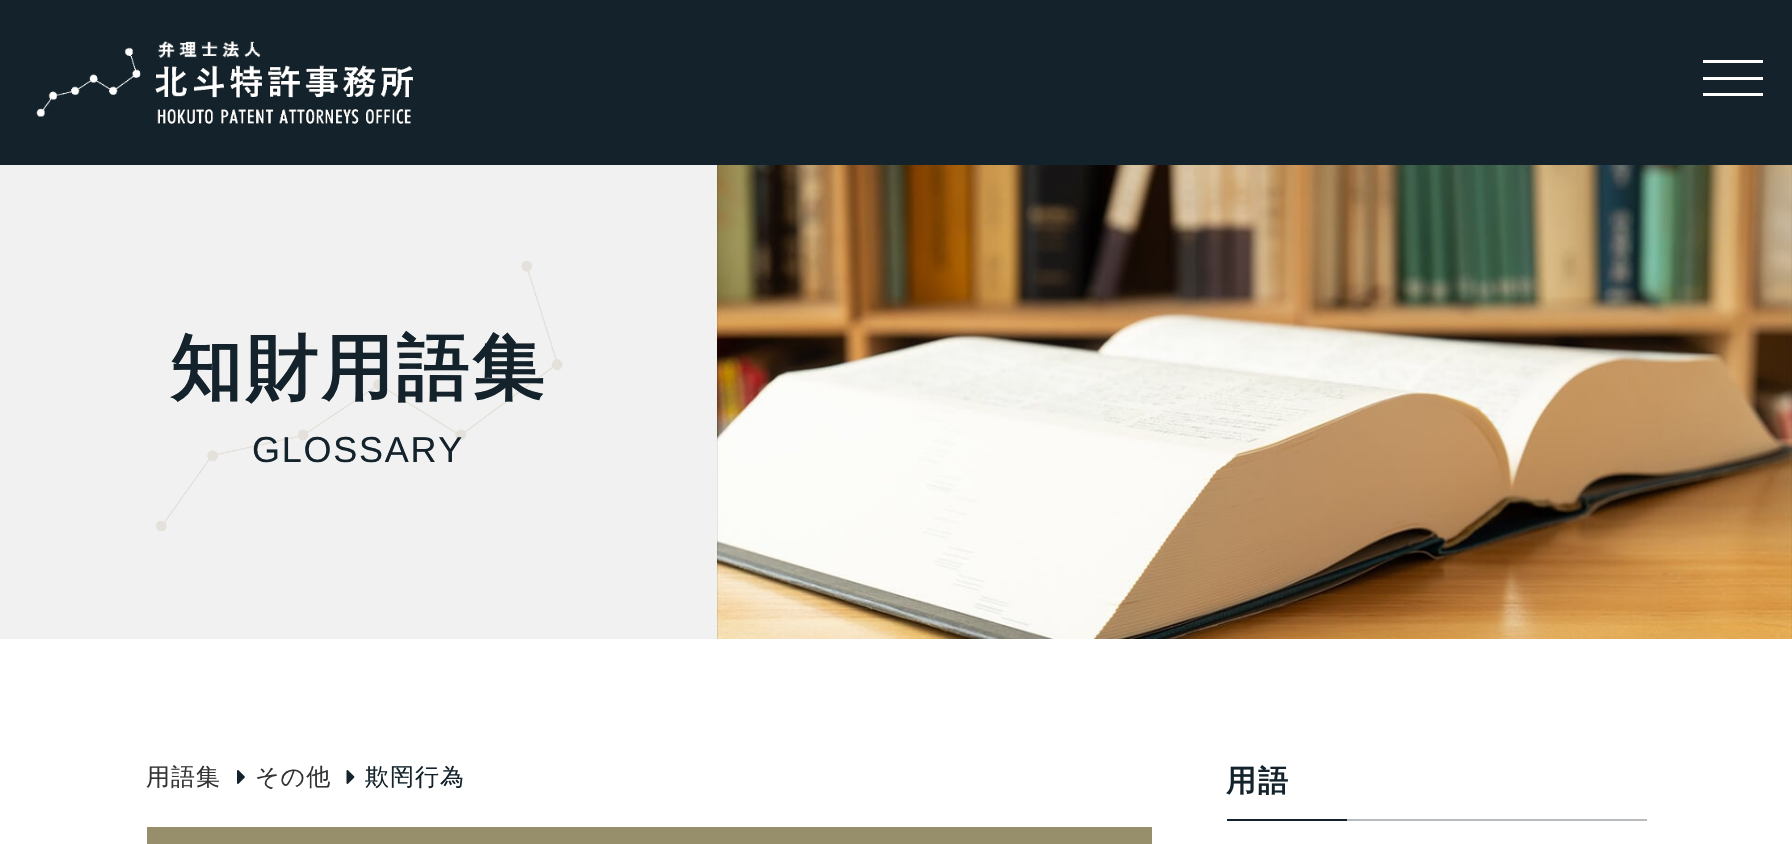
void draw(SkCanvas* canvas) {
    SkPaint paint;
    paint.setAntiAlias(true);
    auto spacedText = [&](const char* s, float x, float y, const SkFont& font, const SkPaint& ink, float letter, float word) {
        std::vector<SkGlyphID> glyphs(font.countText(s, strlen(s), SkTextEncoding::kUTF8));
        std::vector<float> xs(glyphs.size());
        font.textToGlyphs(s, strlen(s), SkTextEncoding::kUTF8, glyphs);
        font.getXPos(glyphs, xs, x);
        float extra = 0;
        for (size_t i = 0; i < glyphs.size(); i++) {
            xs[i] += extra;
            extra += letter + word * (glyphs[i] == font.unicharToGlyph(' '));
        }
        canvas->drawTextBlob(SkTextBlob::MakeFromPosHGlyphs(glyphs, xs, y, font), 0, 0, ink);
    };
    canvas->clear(0xFFFFFFFF);
    paint.setColor(0xFF13222B);
    canvas->drawRect(SkRect::MakeXYWH(0, 0, 1792, 165), paint);
    canvas->drawImageRect(SkImages::DeferredFromEncodedData(SkData::MakeFromFileName("img1.png")), SkRect::MakeXYWH(36, 41, 378, 84), SkSamplingOptions());
    paint.setColor(0xFFFFFFFF);
    canvas->drawRect(SkRect::MakeXYWH(1703, 60, 60, 3), paint);
    canvas->drawRect(SkRect::MakeXYWH(1703, 77, 60, 3), paint);
    canvas->drawRect(SkRect::MakeXYWH(1703, 93, 60, 3), paint);
    paint.setColor(0xFFF1F1F1);
    canvas->drawRect(SkRect::MakeXYWH(0, 165, 717, 474), paint);
    canvas->drawImageRect(SkImages::DeferredFromEncodedData(SkData::MakeFromFileName("img2.png")), SkRect::MakeXYWH(156, 261, 407, 270), SkSamplingOptions());
    SkFont font1(fontMgr->matchFamilyStyle("WenQuanYi Zen Hei", SkFontStyle::Bold()), 72);
    font1.setSubpixel(true);
    paint.setColor(0xFF13222B);
    spacedText("知財用語集", 170, 393, font1, paint, 3.5f, 0);
    SkFont font2(fontMgr->matchFamilyStyle("Liberation Sans", SkFontStyle::Normal()), 36);
    font2.setSubpixel(true);
    spacedText("GLOSSARY", 252, 462, font2, paint, 1.75f, 0);
    canvas->drawImageRect(SkImages::DeferredFromEncodedData(SkData::MakeFromFileName("img3.png")), SkRect::MakeXYWH(717, 165, 1075, 474), SkSamplingOptions());
    SkFont font3(fontMgr->matchFamilyStyle("WenQuanYi Zen Hei", SkFontStyle(500, SkFontStyle::kNormal_Width, SkFontStyle::kUpright_Slant)), 24);
    font3.setSubpixel(true);
    paint.setColor(0xFF333333);
    spacedText("用語集", 146, 785, font3, paint, 1, 0);
    canvas->drawImageRect(SkImages::DeferredFromEncodedData(SkData::MakeFromFileName("img4.png")), SkRect::MakeXYWH(237, 770, 8, 14), SkSamplingOptions());
    spacedText("その他", 255, 785, font3, paint, 1, 0);
    canvas->drawImageRect(SkImages::DeferredFromEncodedData(SkData::MakeFromFileName("img5.png")), SkRect::MakeXYWH(346, 770, 9, 14), SkSamplingOptions());
    paint.setColor(0xFF13222B);
    spacedText("欺罔行為", 365, 785, font3, paint, 1, 0);
    paint.setColor(0xFF978E6C);
    canvas->drawRect(SkRect::MakeXYWH(147, 827, 1005, 17), paint);
    paint.setColor(0xFFB8BCBF);
    canvas->drawRect(SkRect::MakeXYWH(1347, 819, 300, 2), paint);
    SkFont font4(fontMgr->matchFamilyStyle("WenQuanYi Zen Hei", SkFontStyle::Bold()), 30);
    font4.setSubpixel(true);
    paint.setColor(0xFF13222B);
    spacedText("用語", 1226, 791, font4, paint, 2, 0);
    canvas->drawRect(SkRect::MakeXYWH(1227, 819, 120, 2), paint);
}
